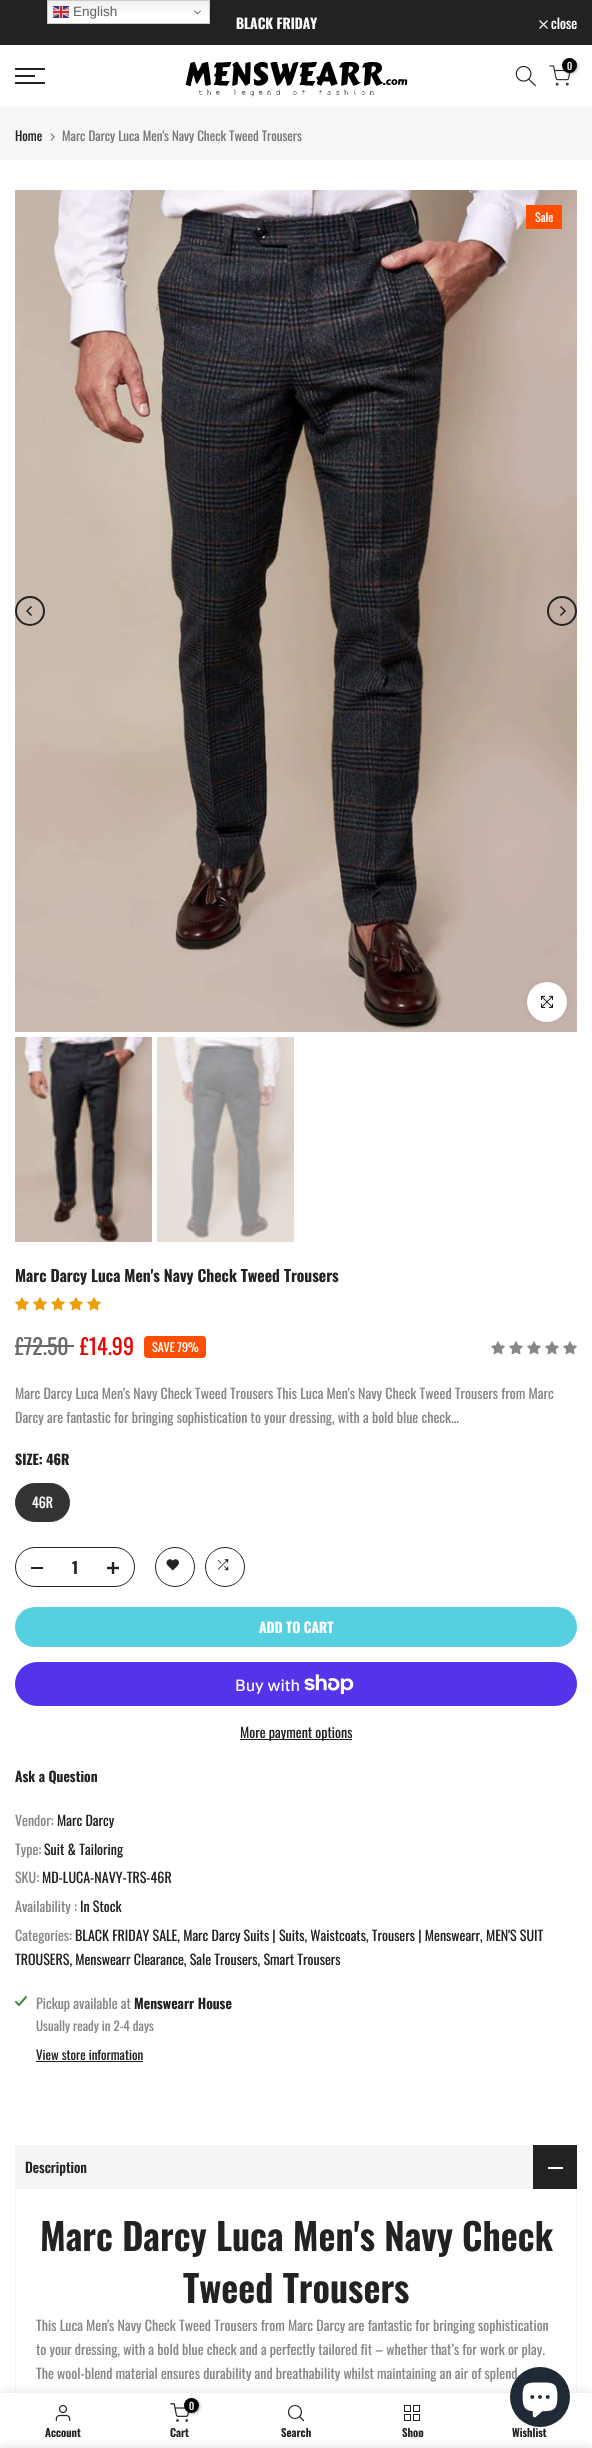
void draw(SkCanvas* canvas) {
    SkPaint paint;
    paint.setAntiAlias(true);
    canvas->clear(0xFFFFFFFF);
    paint.setColor(0xFF222222);
    canvas->drawRect(SkRect::MakeXYWH(0, 0, 592, 45), paint);
    {
        const SkColor colors[] = {0xFFEFEFEF, 0xFFFFFFFF};
        const float stops[] = {0, 0.7f};
        const SkPoint ends[] = {{129, 0}, {129, 24}};
        paint.setShader(SkGradientShader::MakeLinear(ends, colors, stops, 2, SkTileMode::kClamp));
        paint.setAlpha(255);
    }
    canvas->drawRect(SkRect::MakeXYWH(48, 1, 161, 22), paint);
    paint.setStyle(SkPaint::kStroke_Style);
    paint.setStrokeWidth(1);
    paint.setShader(nullptr);
    paint.setColor(0xFFCCCCCC);
    canvas->drawRect(SkRect::MakeXYWH(47.5f, 0.5f, 162, 23), paint);
    canvas->drawImageRect(SkImages::DeferredFromEncodedData(SkData::MakeFromFileName("img1.png")), SkRect::MakeXYWH(53, 6, 16, 12), SkSamplingOptions());
    SkFont font1(fontMgr->matchFamilyStyle("Liberation Sans", SkFontStyle::Normal()), 13.5f);
    font1.setSubpixel(true);
    paint.setStyle(SkPaint::kFill_Style);
    paint.setColor(0xFF696969);
    canvas->drawString("English", 73, 16, font1, paint);
    canvas->drawImageRect(SkImages::DeferredFromEncodedData(SkData::MakeFromFileName("img2.png")), SkRect::MakeXYWH(194, 10, 7, 5), SkSamplingOptions());
    SkFont font2(fontMgr->matchFamilyStyle("Oswald", SkFontStyle(600, SkFontStyle::kNormal_Width, SkFontStyle::kUpright_Slant)), 14);
    font2.setSubpixel(true);
    paint.setColor(0xFFFFFFFF);
    canvas->drawString("BLACK FRIDAY", 236, 29, font2, paint);
    paint.setStyle(SkPaint::kStroke_Style);
    paint.setStrokeWidth(1.1f);
    canvas->drawPath(SkPathBuilder().moveTo(547.5f, 20.5f).lineTo(539.5f, 28.5f).moveTo(547.5f, 28.5f).lineTo(539.5f, 20.5f).detach(), paint);
    SkFont font3(fontMgr->matchFamilyStyle("Oswald", SkFontStyle::Normal()), 14);
    font3.setSubpixel(true);
    paint.setStyle(SkPaint::kFill_Style);
    canvas->drawString("close", 551, 29, font3, paint);
    canvas->drawImageRect(SkImages::DeferredFromEncodedData(SkData::MakeFromFileName("img3.png")), SkRect::MakeXYWH(185, 61, 223, 36), SkSamplingOptions());
    canvas->drawImageRect(SkImages::DeferredFromEncodedData(SkData::MakeFromFileName("img4.png")), SkRect::MakeXYWH(515, 65, 21, 22), SkSamplingOptions());
    canvas->drawImageRect(SkImages::DeferredFromEncodedData(SkData::MakeFromFileName("img5.png")), SkRect::MakeXYWH(549, 65, 22, 21), SkSamplingOptions());
    paint.setColor(0x4D000000);
    paint.setMaskFilter(SkMaskFilter::MakeBlur(kNormal_SkBlurStyle, 1.5f));
    canvas->drawRoundRect(SkRect::MakeXYWH(563, 59, 15, 15), 7.5f, 7.5f, paint);
    paint.setMaskFilter(nullptr);
    paint.setColor(0xFF000000);
    canvas->drawCircle(569.5f, 65.5f, 7.5f, paint);
    SkFont font4(fontMgr->matchFamilyStyle("Oswald", SkFontStyle::Normal()), 10);
    font4.setSubpixel(true);
    paint.setColor(0xFFFFFFFF);
    canvas->drawString("0", 567, 70, font4, paint);
    paint.setColor(0xFF222222);
    canvas->drawRect(SkRect::MakeXYWH(15, 68, 30, 2), paint);
    canvas->drawRect(SkRect::MakeXYWH(15, 75, 20, 2), paint);
    canvas->drawRect(SkRect::MakeXYWH(15, 82, 30, 2), paint);
    paint.setColor(0xFFF6F6F6);
    canvas->drawRect(SkRect::MakeXYWH(0, 107, 592, 53), paint);
    SkFont font5(fontMgr->matchFamilyStyle("Oswald", SkFontStyle::Normal()), 13);
    font5.setSubpixel(true);
    paint.setColor(0xFF222222);
    canvas->drawString("Home", 15, 141, font5, paint);
    canvas->drawImageRect(SkImages::DeferredFromEncodedData(SkData::MakeFromFileName("img6.png")), SkRect::MakeXYWH(50, 133, 5, 8), SkSamplingOptions());
    paint.setColor(0xFF777777);
    canvas->drawString("Marc Darcy Luca Men's Navy Check Tweed Trousers", 62, 141, font5, paint);
    canvas->drawImageRect(SkImages::DeferredFromEncodedData(SkData::MakeFromFileName("img7.png")), SkRect::MakeXYWH(15, 190, 562, 842), SkSamplingOptions());
    paint.setStyle(SkPaint::kStroke_Style);
    paint.setStrokeWidth(2);
    paint.setColor(0xFF222222);
    canvas->drawCircle(30, 611, 14, paint);
    canvas->drawImageRect(SkImages::DeferredFromEncodedData(SkData::MakeFromFileName("img8.png")), SkRect::MakeXYWH(26, 606, 6, 10), SkSamplingOptions());
    canvas->drawCircle(562, 611, 14, paint);
    canvas->drawImageRect(SkImages::DeferredFromEncodedData(SkData::MakeFromFileName("img9.png")), SkRect::MakeXYWH(560, 606, 6, 10), SkSamplingOptions());
    paint.setStyle(SkPaint::kFill_Style);
    paint.setColor(0xFFFF4E00);
    canvas->drawRect(SkRect::MakeXYWH(526, 205, 36, 24), paint);
    SkFont font6(fontMgr->matchFamilyStyle("Oswald", SkFontStyle::Normal()), 12);
    font6.setSubpixel(true);
    paint.setColor(0xFFFFFFFF);
    canvas->drawString("Sale", 535, 222, font6, paint);
    paint.setColor(0x17000000);
    paint.setMaskFilter(SkMaskFilter::MakeBlur(kNormal_SkBlurStyle, 2.5f));
    canvas->drawRoundRect(SkRect::MakeXYWH(527, 982, 40, 40), 20, 20, paint);
    paint.setMaskFilter(nullptr);
    paint.setColor(0xFFFFFFFF);
    canvas->drawCircle(547, 1002, 20, paint);
    canvas->drawImageRect(SkImages::DeferredFromEncodedData(SkData::MakeFromFileName("img10.png")), SkRect::MakeXYWH(541, 995, 12, 13), SkSamplingOptions());
    canvas->drawImageRect(SkImages::DeferredFromEncodedData(SkData::MakeFromFileName("img11.png")), SkRect::MakeXYWH(15, 1037, 137, 205), SkSamplingOptions());
    canvas->drawImageRect(SkImages::DeferredFromEncodedData(SkData::MakeFromFileName("img12.png")), SkRect::MakeXYWH(157, 1037, 137, 205), SkSamplingOptions());
    SkFont font7(fontMgr->matchFamilyStyle("Oswald", SkFontStyle(600, SkFontStyle::kNormal_Width, SkFontStyle::kUpright_Slant)), 16);
    font7.setSubpixel(true);
    paint.setColor(0xFF222222);
    canvas->drawString("Marc Darcy Luca Men's Navy Check Tweed Trousers", 15, 1282, font7, paint);
    canvas->drawImageRect(SkImages::DeferredFromEncodedData(SkData::MakeFromFileName("img13.png")), SkRect::MakeXYWH(15, 1297, 14, 14), SkSamplingOptions());
    canvas->drawImageRect(SkImages::DeferredFromEncodedData(SkData::MakeFromFileName("img13.png")), SkRect::MakeXYWH(33, 1297, 14, 14), SkSamplingOptions());
    canvas->drawImageRect(SkImages::DeferredFromEncodedData(SkData::MakeFromFileName("img13.png")), SkRect::MakeXYWH(51, 1297, 14, 14), SkSamplingOptions());
    canvas->drawImageRect(SkImages::DeferredFromEncodedData(SkData::MakeFromFileName("img13.png")), SkRect::MakeXYWH(69, 1297, 14, 14), SkSamplingOptions());
    canvas->drawImageRect(SkImages::DeferredFromEncodedData(SkData::MakeFromFileName("img13.png")), SkRect::MakeXYWH(87, 1297, 14, 14), SkSamplingOptions());
    SkFont font8(fontMgr->matchFamilyStyle("Oswald", SkFontStyle::Normal()), 22);
    font8.setSubpixel(true);
    paint.setColor(0xFF696969);
    canvas->drawString("£72.50", 15, 1355, font8, paint);
    canvas->drawRect(SkRect::MakeXYWH(15, 1345, 59, 2), paint);
    paint.setColor(0xFFEC0101);
    canvas->drawString("£14.99", 80, 1355, font8, paint);
    paint.setColor(0xFFFF4E00);
    canvas->drawRoundRect(SkRect::MakeXYWH(144, 1336, 62, 22), 4, 4, paint);
    paint.setColor(0xFFFFFFFF);
    canvas->drawString("SAVE 79%", 152, 1352, font6, paint);
    canvas->drawImageRect(SkImages::DeferredFromEncodedData(SkData::MakeFromFileName("img14.png")), SkRect::MakeXYWH(491, 1341, 14, 14), SkSamplingOptions());
    canvas->drawImageRect(SkImages::DeferredFromEncodedData(SkData::MakeFromFileName("img14.png")), SkRect::MakeXYWH(509, 1341, 14, 14), SkSamplingOptions());
    canvas->drawImageRect(SkImages::DeferredFromEncodedData(SkData::MakeFromFileName("img14.png")), SkRect::MakeXYWH(527, 1341, 14, 14), SkSamplingOptions());
    canvas->drawImageRect(SkImages::DeferredFromEncodedData(SkData::MakeFromFileName("img14.png")), SkRect::MakeXYWH(545, 1341, 14, 14), SkSamplingOptions());
    canvas->drawImageRect(SkImages::DeferredFromEncodedData(SkData::MakeFromFileName("img14.png")), SkRect::MakeXYWH(563, 1341, 14, 14), SkSamplingOptions());
    paint.setColor(0xFF878787);
    canvas->drawString("Marc Darcy Luca Men's Navy Check Tweed Trousers This Luca Men's Navy Check Tweed Trousers from Marc", 15, 1399, font3, paint);
    canvas->drawString("Darcy are fantastic for bringing sophistication to your dressing, with a bold blue check...", 15, 1423, font3, paint);
    SkFont font9(fontMgr->matchFamilyStyle("Oswald", SkFontStyle::Bold()), 14);
    font9.setSubpixel(true);
    paint.setColor(0xFF222222);
    canvas->drawString("SIZE: 46R", 15, 1465, font9, paint);
    paint.setColor(0xFF333333);
    canvas->drawRoundRect(SkRect::MakeXYWH(15.5f, 1483.5f, 54, 38), 19, 19, paint);
    paint.setStyle(SkPaint::kStroke_Style);
    paint.setStrokeWidth(1);
    canvas->drawRoundRect(SkRect::MakeXYWH(15.5f, 1483.5f, 54, 38), 19, 19, paint);
    paint.setStyle(SkPaint::kFill_Style);
    paint.setColor(0xFFFFFFFF);
    canvas->drawString("46R", 32, 1508, font3, paint);
    paint.setStyle(SkPaint::kStroke_Style);
    paint.setColor(0xFF222222);
    canvas->drawRoundRect(SkRect::MakeXYWH(15.5f, 1547.5f, 119, 39), 19.5f, 19.5f, paint);
    paint.setStyle(SkPaint::kFill_Style);
    canvas->drawRect(SkRect::MakeXYWH(31, 1567, 12, 2), paint);
    canvas->drawString("1", 72, 1574, font7, paint);
    canvas->drawImageRect(SkImages::DeferredFromEncodedData(SkData::MakeFromFileName("img15.png")), SkRect::MakeXYWH(107, 1562, 12, 12), SkSamplingOptions());
    paint.setStyle(SkPaint::kStroke_Style);
    canvas->drawCircle(175, 1567, 19.5f, paint);
    canvas->drawImageRect(SkImages::DeferredFromEncodedData(SkData::MakeFromFileName("img16.png")), SkRect::MakeXYWH(166, 1559, 13, 12), SkSamplingOptions());
    canvas->drawCircle(225, 1567, 19.5f, paint);
    canvas->drawImageRect(SkImages::DeferredFromEncodedData(SkData::MakeFromFileName("img17.png")), SkRect::MakeXYWH(217, 1559, 12, 12), SkSamplingOptions());
    paint.setStyle(SkPaint::kFill_Style);
    paint.setColor(0xFF56CFE1);
    canvas->drawRoundRect(SkRect::MakeXYWH(15, 1607, 562, 40), 20, 20, paint);
    paint.setColor(0xFFFFFFFF);
    canvas->drawString("ADD TO CART", 259, 1633, font2, paint);
    paint.setColor(0xFF5433EB);
    canvas->drawRoundRect(SkRect::MakeXYWH(15, 1662, 562, 44), 22, 22, paint);
    SkFont font10(fontMgr->matchFamilyStyle("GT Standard", SkFontStyle::Normal()), 16);
    font10.setSubpixel(true);
    paint.setColor(0xFFFFFFFF);
    canvas->drawString("Buy with", 235, 1691, font10, paint);
    canvas->drawImageRect(SkImages::DeferredFromEncodedData(SkData::MakeFromFileName("img18.png")), SkRect::MakeXYWH(304, 1674, 50, 20), SkSamplingOptions());
    paint.setColor(0xFF222222);
    canvas->drawRect(SkRect::MakeXYWH(240, 1739, 112, 1), paint);
    canvas->drawString("More payment options", 240, 1738, font3, paint);
    canvas->drawString("Ask a Question", 15, 1782, font2, paint);
    paint.setColor(0xFF878787);
    canvas->drawString("Vendor:", 15, 1826, font3, paint);
    paint.setColor(0xFF222222);
    canvas->drawString("Marc Darcy", 57, 1826, font3, paint);
    paint.setColor(0xFF878787);
    canvas->drawString("Type:", 15, 1855, font3, paint);
    paint.setColor(0xFF222222);
    canvas->drawString("Suit & Tailoring", 44, 1855, font3, paint);
    paint.setColor(0xFF878787);
    canvas->drawString("SKU:", 15, 1883, font3, paint);
    paint.setColor(0xFF222222);
    canvas->drawString("MD-LUCA-NAVY-TRS-46R", 42, 1883, font3, paint);
    paint.setColor(0xFF878787);
    canvas->drawString("Availability :", 15, 1912, font3, paint);
    paint.setColor(0xFF222222);
    canvas->drawString("In Stock", 80, 1912, font3, paint);
    paint.setColor(0xFF878787);
    canvas->drawString("Categories:", 15, 1941, font3, paint);
    paint.setColor(0xFF222222);
    canvas->drawString("BLACK FRIDAY SALE, Marc Darcy Suits | Suits, Waistcoats, Trousers | Menswearr, MEN'S SUIT", 75, 1941, font3, paint);
    canvas->drawString("TROUSERS, Menswearr Clearance, Sale Trousers, Smart Trousers", 15, 1965, font3, paint);
    canvas->drawImageRect(SkImages::DeferredFromEncodedData(SkData::MakeFromFileName("img19.png")), SkRect::MakeXYWH(15, 1996, 12, 10), SkSamplingOptions());
    paint.setColor(0xFF878787);
    canvas->drawString("Pickup available at", 36, 2009, font3, paint);
    paint.setColor(0xFF222222);
    canvas->drawString("Menswearr House", 134, 2009, font2, paint);
    paint.setColor(0xFF878787);
    canvas->drawString("Usually ready in 2-4 days", 36, 2031, font5, paint);
    paint.setColor(0xFF222222);
    canvas->drawString("View store information", 36, 2060, font5, paint);
    canvas->drawRect(SkRect::MakeXYWH(36, 2061, 107, 1), paint);
    paint.setColor(0xFFF5F5F5);
    canvas->drawRect(SkRect::MakeXYWH(15, 2145, 518, 44), paint);
    SkFont font11(fontMgr->matchFamilyStyle("Oswald", SkFontStyle(500, SkFontStyle::kNormal_Width, SkFontStyle::kUpright_Slant)), 14);
    font11.setSubpixel(true);
    paint.setColor(0xFF222222);
    canvas->drawString("Description", 25, 2173, font11, paint);
    canvas->drawRect(SkRect::MakeXYWH(533, 2145, 44, 44), paint);
    paint.setColor(0xFFFFFFFF);
    canvas->drawRect(SkRect::MakeXYWH(548, 2167, 15, 2), paint);
    paint.setColor(0xFFF5F5F5);
    canvas->drawPath(SkPathBuilder().moveTo(577, 2189).lineTo(577, 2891).lineTo(576, 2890).lineTo(576, 2189).close().detach(), paint);
    canvas->drawPath(SkPathBuilder().moveTo(15, 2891).lineTo(15, 2189).lineTo(16, 2189).lineTo(16, 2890).close().detach(), paint);
    SkFont font12(fontMgr->matchFamilyStyle("Oswald", SkFontStyle(600, SkFontStyle::kNormal_Width, SkFontStyle::kUpright_Slant)), 37);
    font12.setSubpixel(true);
    paint.setColor(0xFF222222);
    canvas->drawString("Marc Darcy Luca Men's Navy Check", 40, 2251, font12, paint);
    canvas->drawString("Tweed Trousers", 183, 2303, font12, paint);
    paint.setColor(0xFF878787);
    canvas->drawString("This Luca Men's Navy Check Tweed Trousers from Marc Darcy are fantastic for bringing sophistication", 36, 2331, font3, paint);
    canvas->drawString("to your dressing, with a bold blue check and a perfectly tailored fit – whether that’s for work or play.", 36, 2355, font3, paint);
    canvas->drawString("The wool-blend material ensures durability and breathability whilst maintaining an air of splend", 36, 2379, font3, paint);
    paint.setColor(0x1F000000);
    paint.setMaskFilter(SkMaskFilter::MakeBlur(kNormal_SkBlurStyle, 4.5f));
    canvas->drawRect(SkRect::MakeXYWH(0, 2393, 592, 55), paint);
    paint.setMaskFilter(nullptr);
    paint.setColor(0xFFFFFFFF);
    canvas->drawRect(SkRect::MakeXYWH(0, 2393, 592, 44), paint);
    paint.setColor(0xFF202A36);
    canvas->drawCircle(540, 2397, 30, paint);
    canvas->drawImageRect(SkImages::DeferredFromEncodedData(SkData::MakeFromFileName("img20.png")), SkRect::MakeXYWH(522, 2382, 36, 36), SkSamplingOptions());
    canvas->drawImageRect(SkImages::DeferredFromEncodedData(SkData::MakeFromFileName("img21.png")), SkRect::MakeXYWH(55, 2404, 16, 18), SkSamplingOptions());
    SkFont font13(fontMgr->matchFamilyStyle("Oswald", SkFontStyle(600, SkFontStyle::kNormal_Width, SkFontStyle::kUpright_Slant)), 11);
    font13.setSubpixel(true);
    paint.setColor(0xFF222222);
    canvas->drawString("Account", 45, 2437, font13, paint);
    canvas->drawImageRect(SkImages::DeferredFromEncodedData(SkData::MakeFromFileName("img22.png")), SkRect::MakeXYWH(170, 2403, 19, 19), SkSamplingOptions());
    paint.setColor(0x4D000000);
    paint.setMaskFilter(SkMaskFilter::MakeBlur(kNormal_SkBlurStyle, 1.5f));
    canvas->drawRoundRect(SkRect::MakeXYWH(185, 2399, 15, 15), 7.5f, 7.5f, paint);
    paint.setMaskFilter(nullptr);
    paint.setColor(0xFF000000);
    canvas->drawCircle(191.5f, 2405.5f, 7.5f, paint);
    paint.setColor(0xFFFFFFFF);
    canvas->drawString("0", 189, 2410, font4, paint);
    paint.setColor(0xFF222222);
    canvas->drawString("Cart", 170, 2437, font13, paint);
    paint.setStyle(SkPaint::kStroke_Style);
    paint.setStrokeWidth(1.2f);
    canvas->drawCircle(295, 2412, 6.5f, paint);
    paint.setStrokeCap(SkPaint::kRound_Cap);
    paint.setStrokeJoin(SkPaint::kRound_Join);
    canvas->drawPath(SkPathBuilder().moveTo(303.5f, 2420.5f).lineTo(300, 2417).detach(), paint);
    paint.setStyle(SkPaint::kFill_Style);
    canvas->drawString("Search", 281, 2437, font13, paint);
    canvas->drawImageRect(SkImages::DeferredFromEncodedData(SkData::MakeFromFileName("img23.png")), SkRect::MakeXYWH(404, 2405, 16, 16), SkSamplingOptions());
    canvas->drawString("Shop", 402, 2437, font13, paint);
    canvas->drawString("Wishlist", 512, 2437, font13, paint);
    paint.setColor(0xFFFFFFFF);
    canvas->drawRect(SkRect::MakeXYWH(0, 2437, 592, 11), paint);
    paint.setColor(0x24000000);
    paint.setMaskFilter(SkMaskFilter::MakeBlur(kNormal_SkBlurStyle, 4.5f));
    canvas->drawRect(SkRect::MakeXYWH(0, 2448, 592, 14), paint);
    paint.setMaskFilter(nullptr);
}
